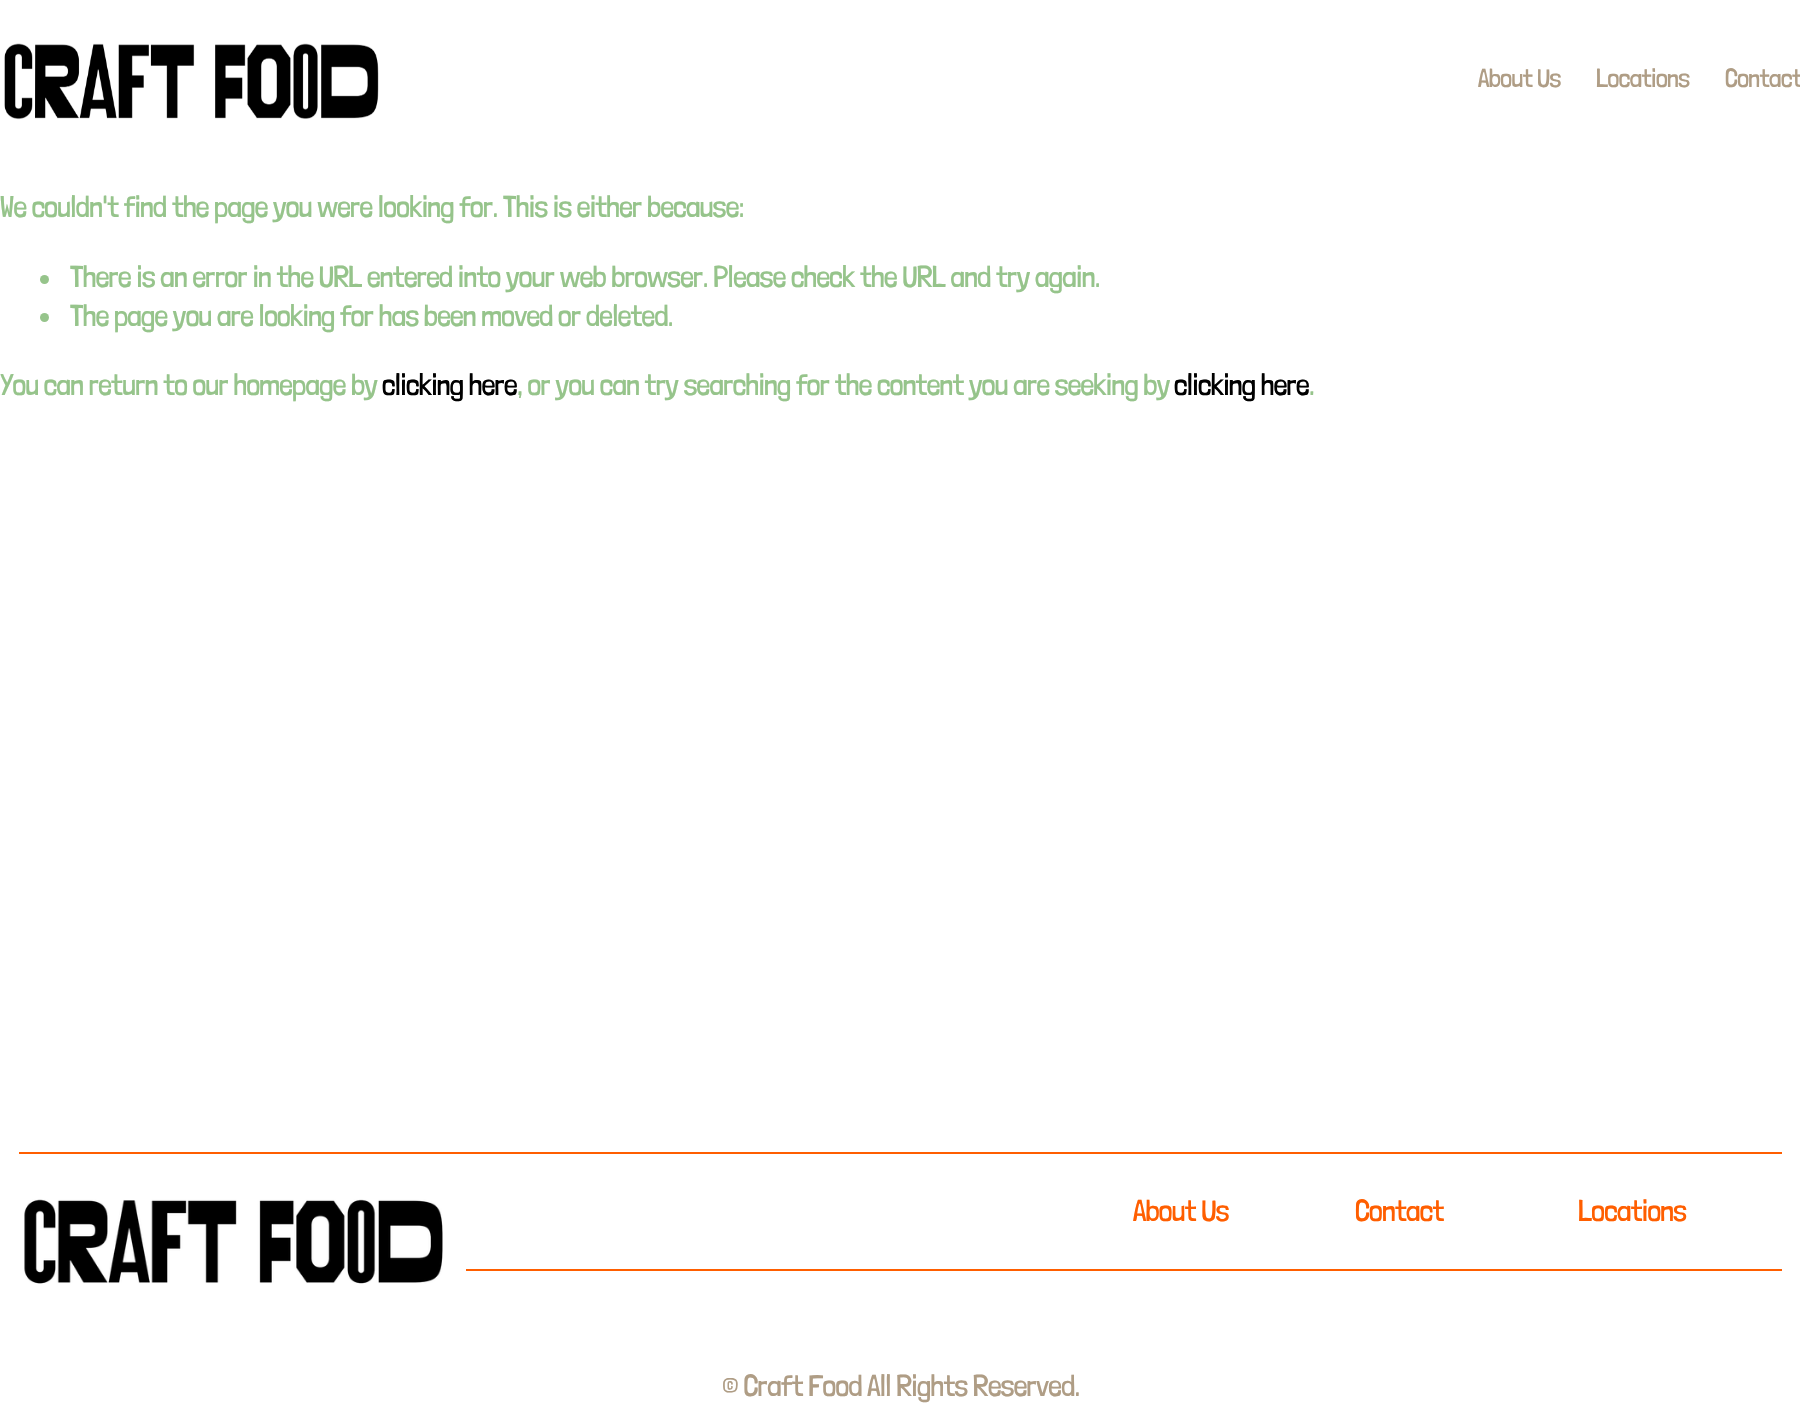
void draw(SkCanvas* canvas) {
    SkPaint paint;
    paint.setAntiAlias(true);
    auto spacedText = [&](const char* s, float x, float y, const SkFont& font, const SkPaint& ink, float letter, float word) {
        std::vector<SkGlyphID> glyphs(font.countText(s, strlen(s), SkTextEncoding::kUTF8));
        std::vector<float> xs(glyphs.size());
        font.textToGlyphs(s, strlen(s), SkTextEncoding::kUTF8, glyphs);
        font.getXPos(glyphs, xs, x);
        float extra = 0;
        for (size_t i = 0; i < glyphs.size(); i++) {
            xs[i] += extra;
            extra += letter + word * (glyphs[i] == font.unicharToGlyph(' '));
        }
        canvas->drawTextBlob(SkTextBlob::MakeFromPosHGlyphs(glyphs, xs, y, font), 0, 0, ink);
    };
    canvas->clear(0xFFFFFFFF);
    canvas->drawImageRect(SkImages::DeferredFromEncodedData(SkData::MakeFromFileName("img1.png")), SkRect::MakeXYWH(4, 43, 375, 77), SkSamplingOptions());
    SkFont font1(fontMgr->matchFamilyStyle("Londrina Solid", SkFontStyle(300, SkFontStyle::kNormal_Width, SkFontStyle::kUpright_Slant)), 26);
    font1.setSubpixel(true);
    paint.setColor(0xFFAF9D85);
    spacedText("About Us", 1478, 87, font1, paint, -0.5f, 0);
    spacedText("Locations", 1596, 87, font1, paint, -0.5f, 0);
    spacedText("Contact", 1725, 87, font1, paint, -0.5f, 0);
    SkFont font2(fontMgr->matchFamilyStyle("Londrina Solid", SkFontStyle(300, SkFontStyle::kNormal_Width, SkFontStyle::kUpright_Slant)), 30.15f);
    font2.setSubpixel(true);
    paint.setColor(0xFF96C48B);
    spacedText("We couldn't find the page you were looking for. This is either because:", 0, 217, font2, paint, -0.6f, 0);
    canvas->drawCircle(44.5f, 279.5f, 4.5f, paint);
    spacedText("There is an error in the URL entered into your web browser. Please check the URL and try again.", 70, 287, font2, paint, -0.6f, 0);
    canvas->drawCircle(44.5f, 317.5f, 4.5f, paint);
    spacedText("The page you are looking for has been moved or deleted.", 70, 326, font2, paint, -0.6f, 0);
    spacedText("You can return to our homepage by", 0, 395, font2, paint, -0.6f, 0);
    paint.setColor(0xFF000000);
    spacedText("clicking here", 382, 395, font2, paint, -0.6f, 0);
    paint.setColor(0xFF96C48B);
    spacedText(", or you can try searching for the", 517, 395, font2, paint, -0.6f, 0);
    spacedText("content you are seeking by", 877, 395, font2, paint, -0.6f, 0);
    paint.setColor(0xFF000000);
    spacedText("clicking here", 1174, 395, font2, paint, -0.6f, 0);
    paint.setColor(0xFF96C48B);
    spacedText(".", 1309, 395, font2, paint, -0.6f, 0);
    paint.setColor(0xFFFF5E00);
    canvas->drawRect(SkRect::MakeXYWH(19, 1152, 1763, 2), paint);
    canvas->drawImageRect(SkImages::DeferredFromEncodedData(SkData::MakeFromFileName("img2.png")), SkRect::MakeXYWH(24, 1199, 419, 85), SkSamplingOptions());
    spacedText("About Us", 1133, 1221, font2, paint, -0.6f, 0);
    spacedText("Contact", 1355, 1221, font2, paint, -0.6f, 0);
    spacedText("Locations", 1578, 1221, font2, paint, -0.6f, 0);
    canvas->drawRect(SkRect::MakeXYWH(466, 1269, 1316, 2), paint);
    paint.setColor(0xFFAF9D85);
    spacedText("© Craft Food All Rights Reserved.", 722, 1396, font2, paint, -0.6f, 0);
}
